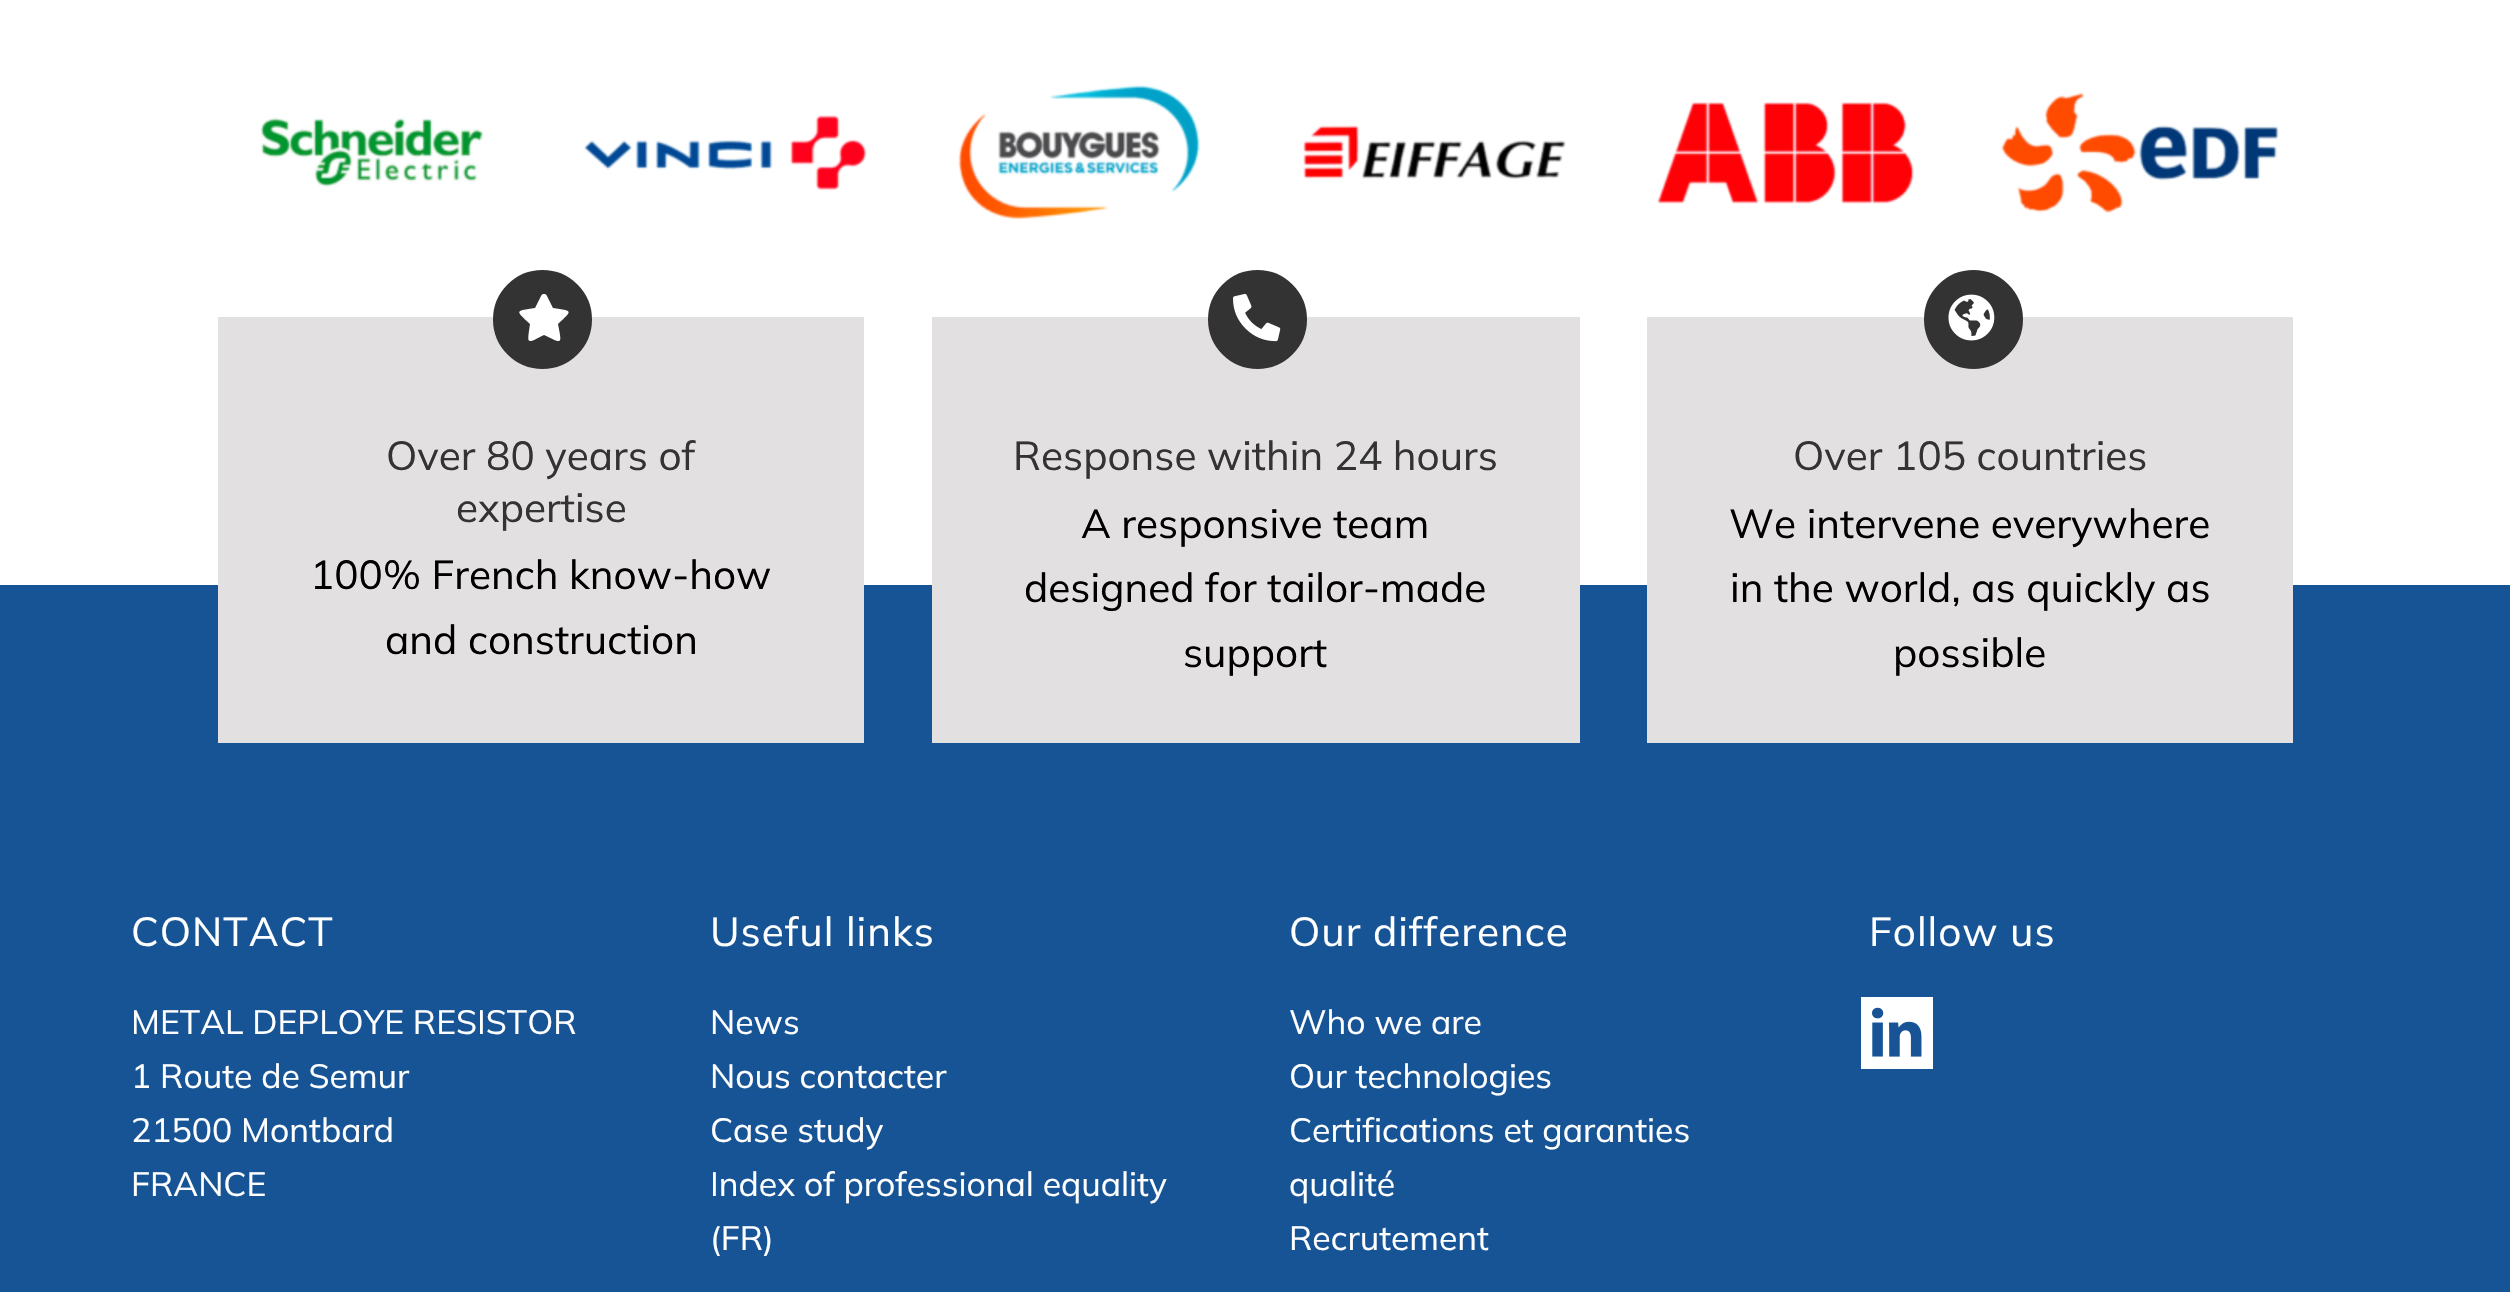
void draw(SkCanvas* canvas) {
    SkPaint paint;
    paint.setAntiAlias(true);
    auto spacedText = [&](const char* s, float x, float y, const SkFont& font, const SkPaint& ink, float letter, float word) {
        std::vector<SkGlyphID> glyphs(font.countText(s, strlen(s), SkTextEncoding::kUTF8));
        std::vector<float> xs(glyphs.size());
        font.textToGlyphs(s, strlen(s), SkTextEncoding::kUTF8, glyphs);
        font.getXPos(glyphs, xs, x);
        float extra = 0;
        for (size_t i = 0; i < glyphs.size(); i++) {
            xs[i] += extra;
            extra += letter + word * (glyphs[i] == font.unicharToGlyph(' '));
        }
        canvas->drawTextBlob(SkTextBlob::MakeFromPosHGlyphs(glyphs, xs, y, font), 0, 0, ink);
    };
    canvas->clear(0xFFFFFFFF);
    canvas->drawImageRect(SkImages::DeferredFromEncodedData(SkData::MakeFromFileName("img1.png")), SkRect::MakeXYWH(260, 117, 224, 70), SkSamplingOptions());
    canvas->drawImageRect(SkImages::DeferredFromEncodedData(SkData::MakeFromFileName("img2.png")), SkRect::MakeXYWH(584, 115, 283, 76), SkSamplingOptions());
    canvas->drawImageRect(SkImages::DeferredFromEncodedData(SkData::MakeFromFileName("img3.png")), SkRect::MakeXYWH(958, 85, 242, 135), SkSamplingOptions());
    canvas->drawImageRect(SkImages::DeferredFromEncodedData(SkData::MakeFromFileName("img4.png")), SkRect::MakeXYWH(1303, 125, 263, 54), SkSamplingOptions());
    canvas->drawImageRect(SkImages::DeferredFromEncodedData(SkData::MakeFromFileName("img5.png")), SkRect::MakeXYWH(1657, 102, 257, 102), SkSamplingOptions());
    canvas->drawImageRect(SkImages::DeferredFromEncodedData(SkData::MakeFromFileName("img6.png")), SkRect::MakeXYWH(2001, 92, 278, 121), SkSamplingOptions());
    paint.setColor(0xFF175495);
    canvas->drawRect(SkRect::MakeXYWH(0, 585, 2510, 707), paint);
    paint.setColor(0xFFE3E0E2);
    canvas->drawRect(SkRect::MakeXYWH(218, 317, 646, 426), paint);
    paint.setColor(0xFF333333);
    canvas->drawCircle(542.5f, 319.5f, 48.5f, paint);
    paint.setStyle(SkPaint::kStroke_Style);
    paint.setStrokeWidth(2);
    canvas->drawCircle(542.5f, 319.5f, 48.5f, paint);
    paint.setStyle(SkPaint::kFill_Style);
    paint.setColor(0xFFFFFFFF);
    canvas->drawPath(SkPathBuilder().moveTo(541, 296).cubicTo(542, 294, 543, 294, 544, 294).cubicTo(545, 294, 546, 294, 547, 296).lineTo(553, 308).cubicTo(573, 311, 573, 310, 558, 324).cubicTo(562, 345, 563, 344, 544, 335).cubicTo(526, 344, 527, 345, 530, 324).cubicTo(515, 310, 515, 311, 535, 308).close().detach(), paint);
    SkFont font1(fontMgr->matchFamilyStyle("Mulish", SkFontStyle::Normal()), 40.5f);
    font1.setSubpixel(true);
    paint.setColor(0xFF333333);
    canvas->drawString("Over 80 years of", 386, 470, font1, paint);
    canvas->drawString("expertise", 456, 522, font1, paint);
    paint.setColor(0xFF000000);
    canvas->drawString("100% French know-how", 310, 589, font1, paint);
    canvas->drawString("and construction", 385, 654, font1, paint);
    paint.setColor(0xFFE3E0E2);
    canvas->drawRect(SkRect::MakeXYWH(932, 317, 648, 426), paint);
    paint.setColor(0xFF333333);
    canvas->drawCircle(1257.5f, 319.5f, 48.5f, paint);
    paint.setStyle(SkPaint::kStroke_Style);
    canvas->drawCircle(1257.5f, 319.5f, 48.5f, paint);
    canvas->drawImageRect(SkImages::DeferredFromEncodedData(SkData::MakeFromFileName("img7.png")), SkRect::MakeXYWH(1233, 293, 48, 49), SkSamplingOptions());
    paint.setStyle(SkPaint::kFill_Style);
    canvas->drawString("Response within 24 hours", 1013, 470, font1, paint);
    paint.setColor(0xFF000000);
    canvas->drawString("A responsive team", 1081, 538, font1, paint);
    canvas->drawString("designed for tailor-made", 1024, 602, font1, paint);
    canvas->drawString("support", 1183, 667, font1, paint);
    paint.setColor(0xFFE3E0E2);
    canvas->drawRect(SkRect::MakeXYWH(1647, 317, 646, 426), paint);
    paint.setColor(0xFF333333);
    canvas->drawCircle(1973.5f, 319.5f, 48.5f, paint);
    paint.setStyle(SkPaint::kStroke_Style);
    canvas->drawCircle(1973.5f, 319.5f, 48.5f, paint);
    canvas->drawImageRect(SkImages::DeferredFromEncodedData(SkData::MakeFromFileName("img8.png")), SkRect::MakeXYWH(1948, 294, 47, 47), SkSamplingOptions());
    paint.setStyle(SkPaint::kFill_Style);
    canvas->drawString("Over 105 countries", 1793, 470, font1, paint);
    paint.setColor(0xFF000000);
    canvas->drawString("We intervene everywhere", 1729, 538, font1, paint);
    canvas->drawString("in the world, as quickly as", 1730, 602, font1, paint);
    canvas->drawString("possible", 1893, 667, font1, paint);
    paint.setColor(0xFFFFFFFF);
    spacedText("CONTACT", 131, 946, font1, paint, 1, 0);
    SkFont font2(fontMgr->matchFamilyStyle("Mulish", SkFontStyle::Normal()), 33.75f);
    font2.setSubpixel(true);
    canvas->drawString("METAL DEPLOYE RESISTOR", 131, 1034, font2, paint);
    canvas->drawString("1 Route de Semur", 131, 1088, font2, paint);
    canvas->drawString("21500 Montbard", 131, 1142, font2, paint);
    canvas->drawString("FRANCE", 131, 1196, font2, paint);
    spacedText("Useful links", 710, 946, font1, paint, 1, 0);
    canvas->drawString("News", 710, 1034, font2, paint);
    canvas->drawString("Nous contacter", 710, 1088, font2, paint);
    canvas->drawString("Case study", 710, 1142, font2, paint);
    canvas->drawString("Index of professional equality", 710, 1196, font2, paint);
    canvas->drawString("(FR)", 710, 1250, font2, paint);
    spacedText("Our difference", 1289, 946, font1, paint, 1, 0);
    canvas->drawString("Who we are", 1289, 1034, font2, paint);
    canvas->drawString("Our technologies", 1289, 1088, font2, paint);
    canvas->drawString("Certifications et garanties", 1289, 1142, font2, paint);
    canvas->drawString("qualité", 1289, 1196, font2, paint);
    canvas->drawString("Recrutement", 1289, 1250, font2, paint);
    spacedText("Follow us", 1869, 946, font1, paint, 1, 0);
    canvas->drawRect(SkRect::MakeXYWH(1861, 997, 72, 72), paint);
    canvas->drawImageRect(SkImages::DeferredFromEncodedData(SkData::MakeFromFileName("img9.png")), SkRect::MakeXYWH(1872, 1007, 50, 50), SkSamplingOptions());
}
